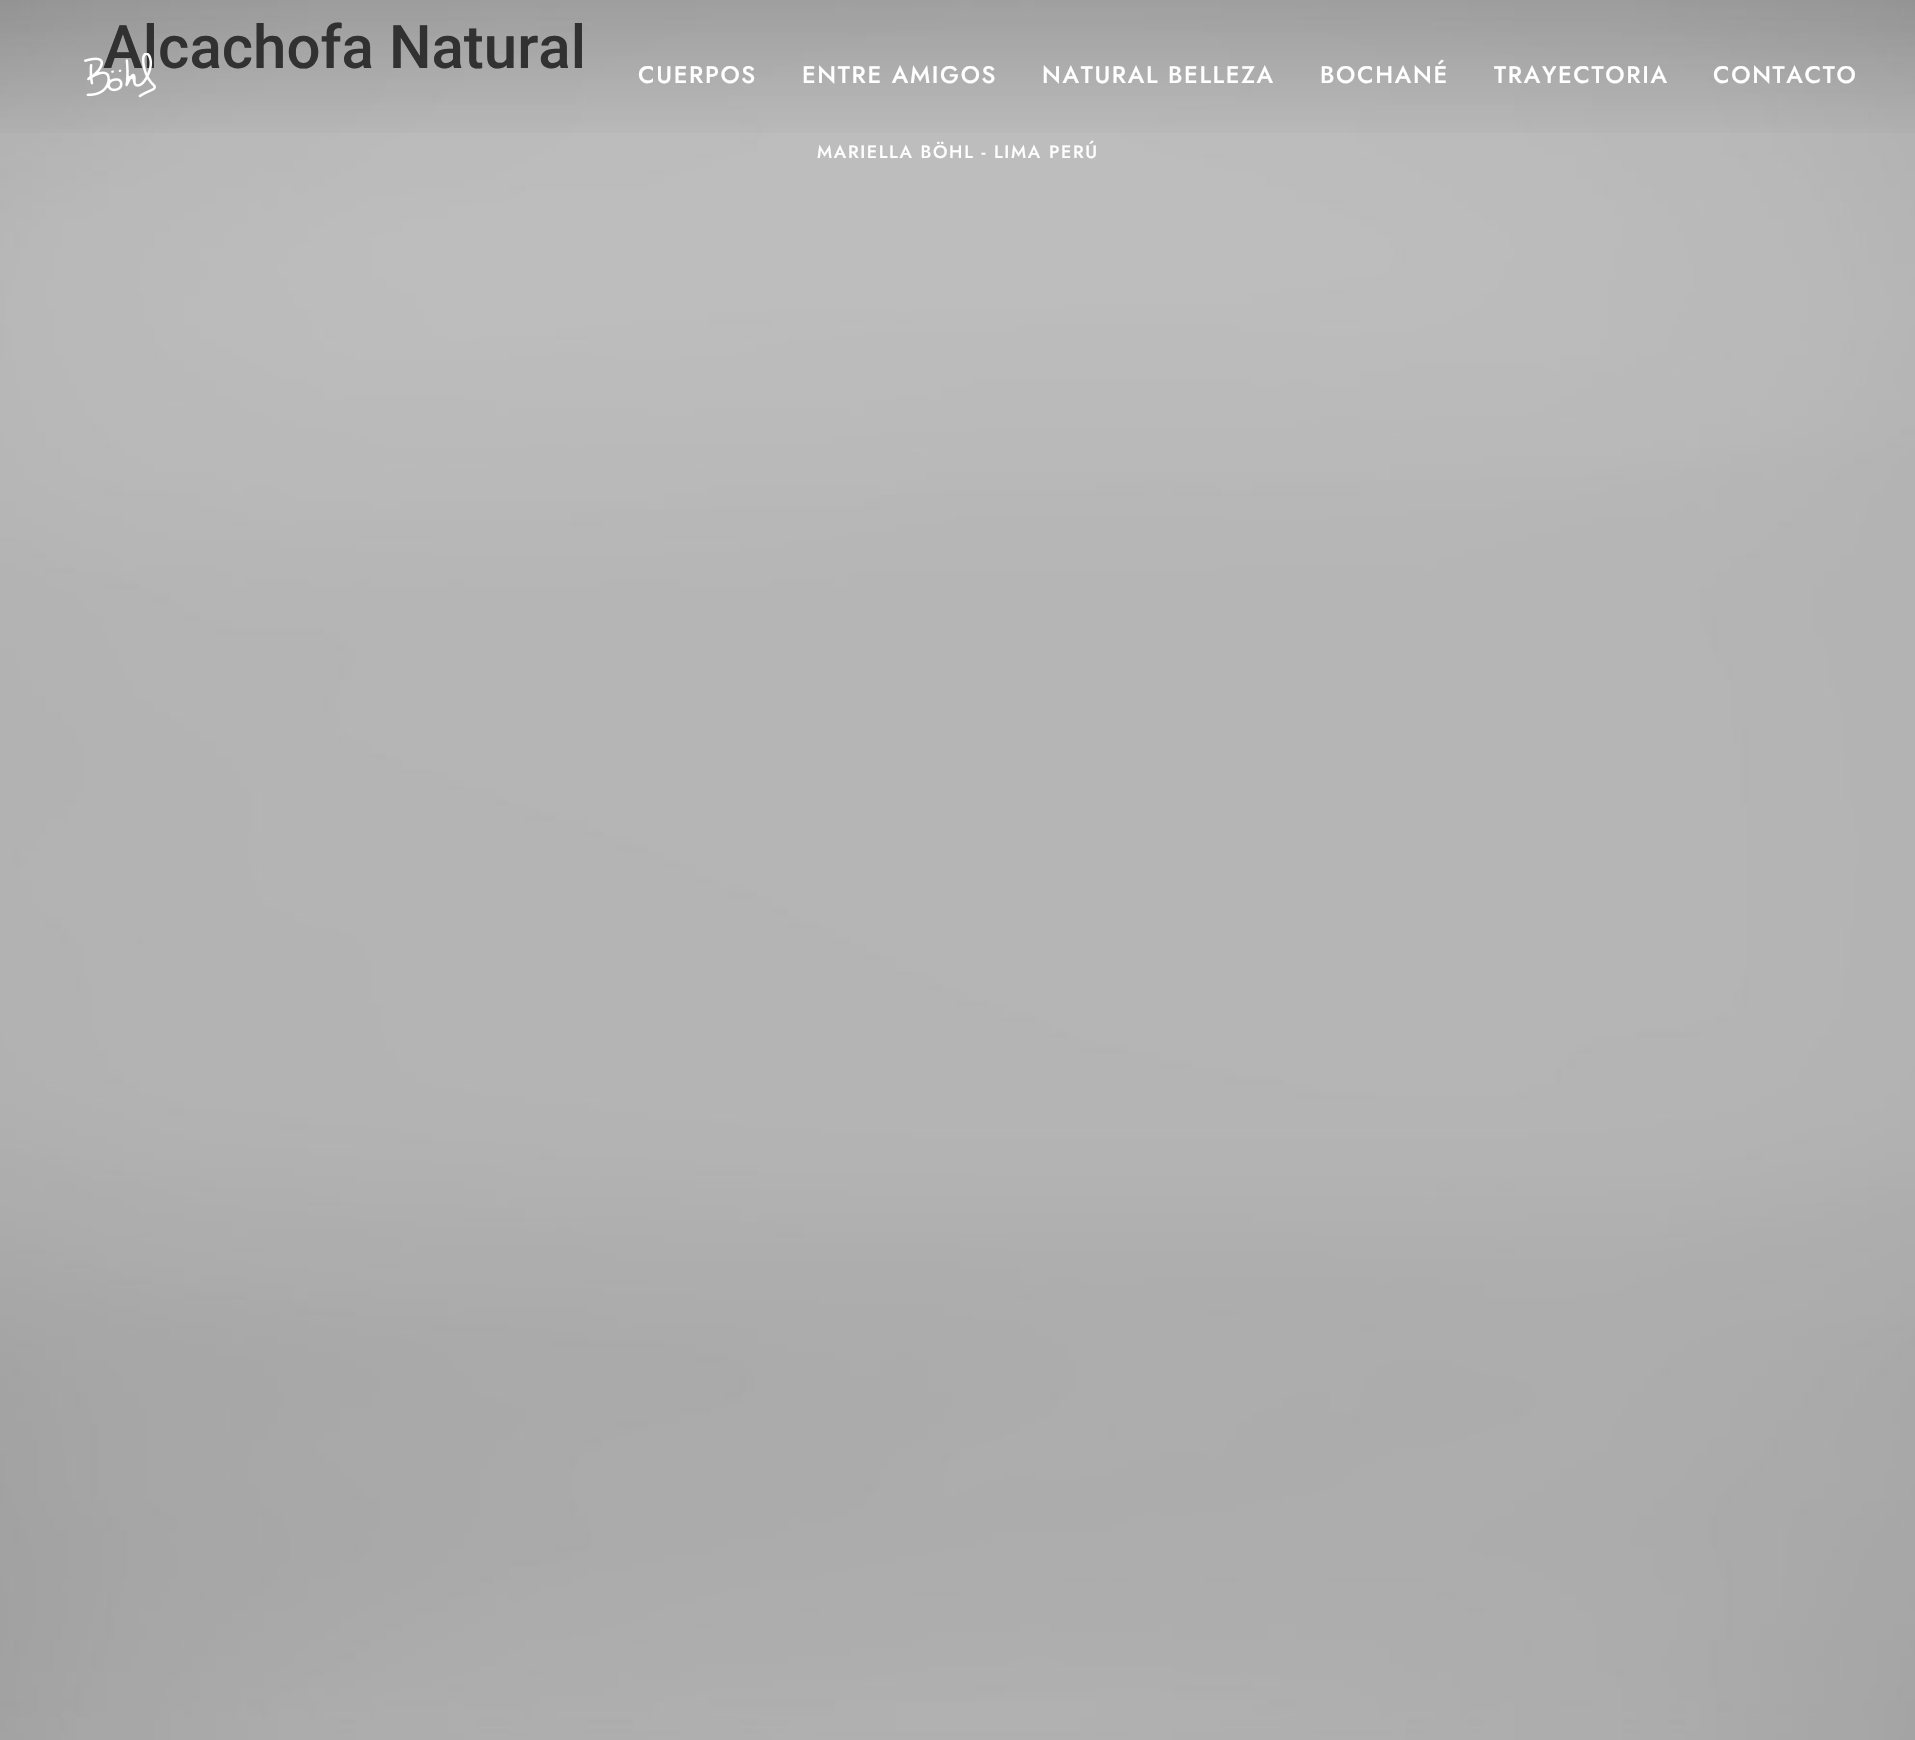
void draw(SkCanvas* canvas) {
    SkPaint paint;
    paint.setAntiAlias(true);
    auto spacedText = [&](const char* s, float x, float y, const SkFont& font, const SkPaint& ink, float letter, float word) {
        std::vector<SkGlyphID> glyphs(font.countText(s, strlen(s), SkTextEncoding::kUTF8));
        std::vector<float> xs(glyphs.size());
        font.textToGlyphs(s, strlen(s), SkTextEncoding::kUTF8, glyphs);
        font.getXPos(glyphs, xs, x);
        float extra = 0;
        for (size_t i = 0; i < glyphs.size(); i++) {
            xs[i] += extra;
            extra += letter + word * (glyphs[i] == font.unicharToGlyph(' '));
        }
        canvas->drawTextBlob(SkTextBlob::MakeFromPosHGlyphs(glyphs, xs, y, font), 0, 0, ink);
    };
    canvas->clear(0xFFFFFFFF);
    canvas->drawImageRect(SkImages::DeferredFromEncodedData(SkData::MakeFromFileName("img1.png")), SkRect::MakeXYWH(0, 0, 1915, 1740), SkSamplingOptions());
    SkFont font1(fontMgr->matchFamilyStyle("Roboto", SkFontStyle(500, SkFontStyle::kNormal_Width, SkFontStyle::kUpright_Slant)), 60);
    font1.setSubpixel(true);
    paint.setColor(0xFF333333);
    canvas->drawString("Alcachofa Natural", 103, 68, font1, paint);
    {
        const SkColor colors[] = {0x30212121, 0x00212121};
        const float stops[] = {0, 1};
        const SkPoint ends[] = {{958, 0}, {958, 150}};
        paint.setShader(SkGradientShader::MakeLinear(ends, colors, stops, 2, SkTileMode::kClamp));
        paint.setAlpha(255);
    }
    canvas->drawRect(SkRect::MakeXYWH(0, 0, 1915, 133), paint);
    canvas->drawImageRect(SkImages::DeferredFromEncodedData(SkData::MakeFromFileName("img2.png")), SkRect::MakeXYWH(84, 53, 72, 45), SkSamplingOptions());
    SkFont font2(fontMgr->matchFamilyStyle("Jost", SkFontStyle(500, SkFontStyle::kNormal_Width, SkFontStyle::kUpright_Slant)), 24);
    font2.setSubpixel(true);
    paint.setShader(nullptr);
    paint.setColor(0xFFFFFFFF);
    spacedText("CUERPOS", 638, 83, font2, paint, 1.65f, 0);
    spacedText("ENTRE AMIGOS", 802, 83, font2, paint, 1.65f, 0);
    spacedText("NATURAL BELLEZA", 1042, 83, font2, paint, 1.65f, 0);
    spacedText("BOCHANÉ", 1320, 83, font2, paint, 1.65f, 0);
    spacedText("TRAYECTORIA", 1494, 83, font2, paint, 1.65f, 0);
    spacedText("CONTACTO", 1713, 83, font2, paint, 1.65f, 0);
    SkFont font3(fontMgr->matchFamilyStyle("Jost", SkFontStyle(500, SkFontStyle::kNormal_Width, SkFontStyle::kUpright_Slant)), 18);
    font3.setSubpixel(true);
    spacedText("MARIELLA BÖHL - LIMA PERÚ", 817, 158, font3, paint, 1.65f, 0);
}
